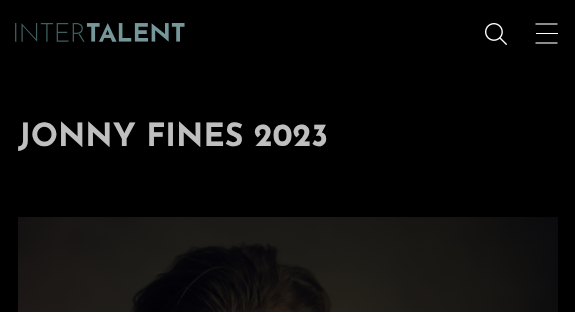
void draw(SkCanvas* canvas) {
    SkPaint paint;
    paint.setAntiAlias(true);
    canvas->clear(0xFF000000);
    canvas->drawImageRect(SkImages::DeferredFromEncodedData(SkData::MakeFromFileName("img1.png")), SkRect::MakeXYWH(15, 23, 170, 19), SkSamplingOptions());
    canvas->drawImageRect(SkImages::DeferredFromEncodedData(SkData::MakeFromFileName("img2.png")), SkRect::MakeXYWH(485, 23, 22, 22), SkSamplingOptions());
    paint.setStyle(SkPaint::kStroke_Style);
    paint.setStrokeWidth(1.1f);
    paint.setColor(0xFFFFFFFF);
    canvas->drawPath(SkPathBuilder().moveTo(535.5f, 24).lineTo(557.5f, 24).detach(), paint);
    paint.setStyle(SkPaint::kFill_Style);
    canvas->drawRect(SkRect::MakeXYWH(536, 33, 22, 1), paint);
    paint.setStyle(SkPaint::kStroke_Style);
    canvas->drawPath(SkPathBuilder().moveTo(557.5f, 43).lineTo(535.5f, 43).detach(), paint);
    SkFont font1(fontMgr->matchFamilyStyle("Josefin Sans", SkFontStyle::Bold()), 32);
    font1.setSubpixel(true);
    paint.setStyle(SkPaint::kFill_Style);
    paint.setColor(0xFFBFBFBF);
    canvas->drawString("JONNY FINES 2023", 18, 146, font1, paint);
    canvas->drawImageRect(SkImages::DeferredFromEncodedData(SkData::MakeFromFileName("img3.png")), SkRect::MakeXYWH(18, 217, 540, 95), SkSamplingOptions());
}
